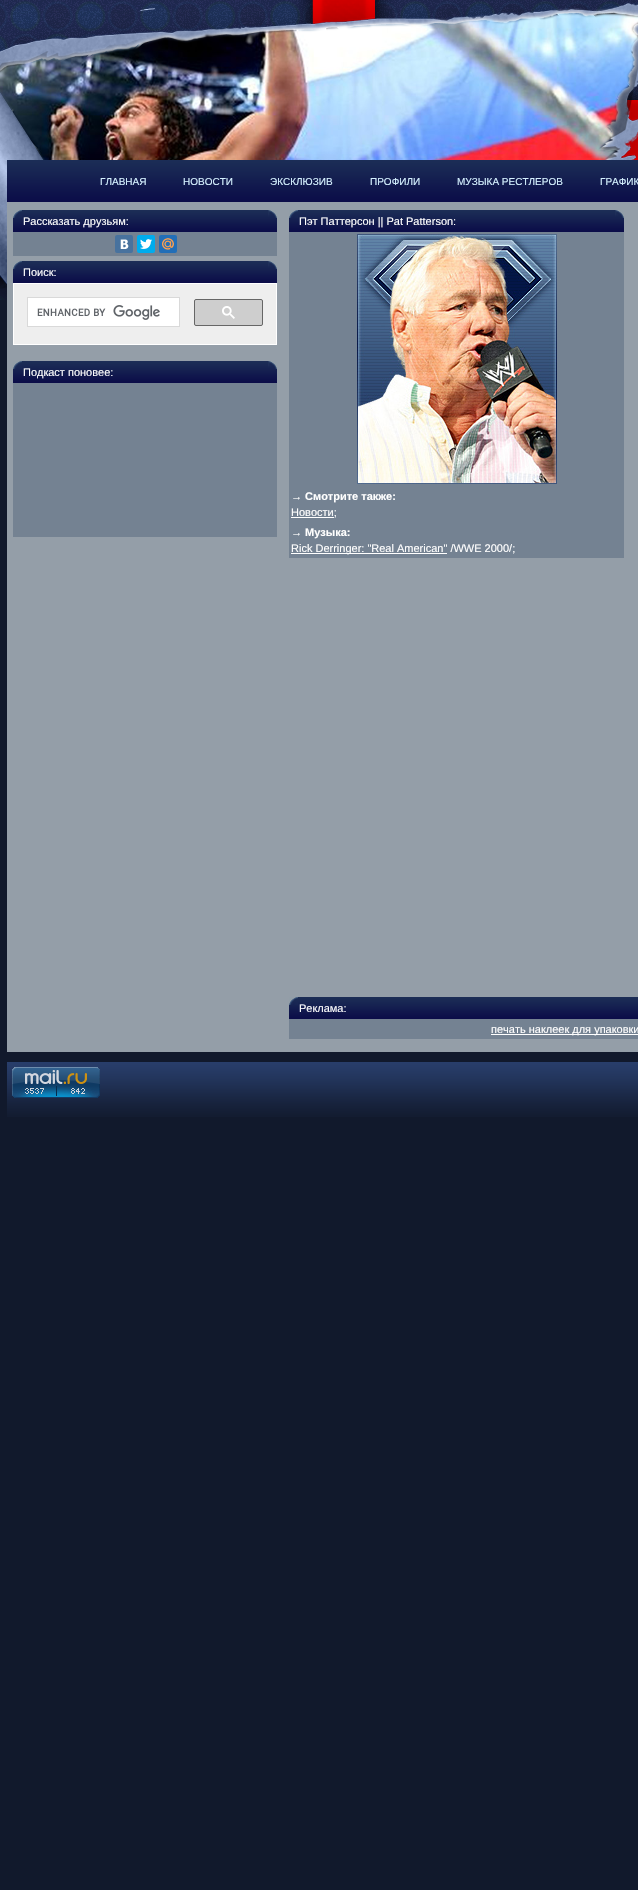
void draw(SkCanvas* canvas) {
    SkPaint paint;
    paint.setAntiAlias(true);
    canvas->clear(0xFF11192C);
    canvas->drawImageRect(SkImages::DeferredFromEncodedData(SkData::MakeFromFileName("img1.png")), SkRect::MakeXYWH(0, 0, 638, 300), SkSamplingOptions());
    canvas->drawImageRect(SkImages::DeferredFromEncodedData(SkData::MakeFromFileName("img2.png")), SkRect::MakeXYWH(7, 160, 631, 42), SkSamplingOptions());
    SkFont font1(fontMgr->matchFamilyStyle("Liberation Sans", SkFontStyle::Normal()), 10);
    font1.setSubpixel(true);
    paint.setColor(0xFFD5F1FF);
    canvas->drawString("ГЛАВНАЯ", 100, 185, font1, paint);
    canvas->drawString("НОВОСТИ", 183, 185, font1, paint);
    canvas->drawString("ЭКСКЛЮЗИВ", 270, 185, font1, paint);
    canvas->drawString("ПРОФИЛИ", 370, 185, font1, paint);
    canvas->drawString("МУЗЫКА РЕСТЛЕРОВ", 457, 185, font1, paint);
    canvas->drawString("ГРАФИК", 600, 185, font1, paint);
    paint.setColor(0xFF949EA8);
    canvas->drawRect(SkRect::MakeXYWH(7, 202, 631, 850), paint);
    canvas->drawImageRect(SkImages::DeferredFromEncodedData(SkData::MakeFromFileName("img3.png")), SkRect::MakeXYWH(13, 210, 264, 22), SkSamplingOptions());
    canvas->drawImageRect(SkImages::DeferredFromEncodedData(SkData::MakeFromFileName("img4.png")), SkRect::MakeXYWH(13, 210, 9, 8), SkSamplingOptions());
    canvas->drawImageRect(SkImages::DeferredFromEncodedData(SkData::MakeFromFileName("img5.png")), SkRect::MakeXYWH(268, 210, 9, 8), SkSamplingOptions());
    SkFont font2(fontMgr->matchFamilyStyle("Liberation Sans", SkFontStyle::Normal()), 11);
    font2.setSubpixel(true);
    paint.setColor(0xFFFFFFFF);
    canvas->drawString("Рассказать друзьям:", 23, 225, font2, paint);
    paint.setColor(0xFF748292);
    canvas->drawRect(SkRect::MakeXYWH(13, 232, 264, 24), paint);
    paint.setColor(0xFF48729E);
    canvas->drawRoundRect(SkRect::MakeXYWH(115, 235, 18, 18), 2, 2, paint);
    canvas->drawImageRect(SkImages::DeferredFromEncodedData(SkData::MakeFromFileName("img6.png")), SkRect::MakeXYWH(120, 239, 9, 10), SkSamplingOptions());
    paint.setColor(0xFF00ACED);
    canvas->drawRoundRect(SkRect::MakeXYWH(137, 235, 18, 18), 2, 2, paint);
    canvas->drawImageRect(SkImages::DeferredFromEncodedData(SkData::MakeFromFileName("img7.png")), SkRect::MakeXYWH(140, 239, 12, 10), SkSamplingOptions());
    paint.setColor(0xFF226EB7);
    canvas->drawRoundRect(SkRect::MakeXYWH(159, 235, 18, 18), 2, 2, paint);
    canvas->drawImageRect(SkImages::DeferredFromEncodedData(SkData::MakeFromFileName("img8.png")), SkRect::MakeXYWH(162, 238, 12, 12), SkSamplingOptions());
    canvas->drawImageRect(SkImages::DeferredFromEncodedData(SkData::MakeFromFileName("img3.png")), SkRect::MakeXYWH(13, 261, 264, 22), SkSamplingOptions());
    canvas->drawImageRect(SkImages::DeferredFromEncodedData(SkData::MakeFromFileName("img4.png")), SkRect::MakeXYWH(13, 261, 9, 8), SkSamplingOptions());
    canvas->drawImageRect(SkImages::DeferredFromEncodedData(SkData::MakeFromFileName("img5.png")), SkRect::MakeXYWH(268, 261, 9, 8), SkSamplingOptions());
    paint.setColor(0xFFFFFFFF);
    canvas->drawString("Поиск:", 23, 276, font2, paint);
    paint.setColor(0xFFEEEEEE);
    canvas->drawRect(SkRect::MakeXYWH(13.5f, 283.5f, 263, 61), paint);
    paint.setStyle(SkPaint::kStroke_Style);
    paint.setStrokeWidth(1);
    paint.setColor(0xFFFFFFFF);
    canvas->drawRect(SkRect::MakeXYWH(13.5f, 283.5f, 263, 61), paint);
    paint.setStyle(SkPaint::kFill_Style);
    canvas->drawRect(SkRect::MakeXYWH(27.5f, 297.5f, 152, 29), paint);
    paint.setStyle(SkPaint::kStroke_Style);
    paint.setColor(0xFFD9D9D9);
    canvas->drawRect(SkRect::MakeXYWH(27.5f, 297.5f, 152, 29), paint);
    canvas->drawImageRect(SkImages::DeferredFromEncodedData(SkData::MakeFromFileName("img9.png")), SkRect::MakeXYWH(37, 305, 123, 15), SkSamplingOptions());
    paint.setStyle(SkPaint::kFill_Style);
    paint.setColor(0xFFCECECE);
    canvas->drawRoundRect(SkRect::MakeXYWH(194.5f, 299.5f, 68, 26), 1.5f, 1.5f, paint);
    paint.setStyle(SkPaint::kStroke_Style);
    paint.setColor(0xFF666666);
    canvas->drawRoundRect(SkRect::MakeXYWH(194.5f, 299.5f, 68, 26), 1.5f, 1.5f, paint);
    canvas->drawImageRect(SkImages::DeferredFromEncodedData(SkData::MakeFromFileName("img10.png")), SkRect::MakeXYWH(222, 306, 13, 13), SkSamplingOptions());
    canvas->drawImageRect(SkImages::DeferredFromEncodedData(SkData::MakeFromFileName("img3.png")), SkRect::MakeXYWH(13, 361, 264, 22), SkSamplingOptions());
    canvas->drawImageRect(SkImages::DeferredFromEncodedData(SkData::MakeFromFileName("img4.png")), SkRect::MakeXYWH(13, 361, 9, 8), SkSamplingOptions());
    canvas->drawImageRect(SkImages::DeferredFromEncodedData(SkData::MakeFromFileName("img5.png")), SkRect::MakeXYWH(268, 361, 9, 8), SkSamplingOptions());
    paint.setStyle(SkPaint::kFill_Style);
    paint.setColor(0xFFFFFFFF);
    canvas->drawString("Подкаст поновее:", 23, 376, font2, paint);
    paint.setColor(0xFF748292);
    canvas->drawRect(SkRect::MakeXYWH(13, 383, 264, 154), paint);
    canvas->drawImageRect(SkImages::DeferredFromEncodedData(SkData::MakeFromFileName("img11.png")), SkRect::MakeXYWH(289, 210, 335, 22), SkSamplingOptions());
    canvas->drawImageRect(SkImages::DeferredFromEncodedData(SkData::MakeFromFileName("img4.png")), SkRect::MakeXYWH(289, 210, 9, 8), SkSamplingOptions());
    canvas->drawImageRect(SkImages::DeferredFromEncodedData(SkData::MakeFromFileName("img5.png")), SkRect::MakeXYWH(615, 210, 9, 8), SkSamplingOptions());
    paint.setColor(0xFFFFFFFF);
    canvas->drawString("Пэт Паттерсон || Pat Patterson:", 299, 225, font2, paint);
    paint.setColor(0xFF748292);
    canvas->drawRect(SkRect::MakeXYWH(289, 232, 335, 326), paint);
    canvas->drawImageRect(SkImages::DeferredFromEncodedData(SkData::MakeFromFileName("img12.png")), SkRect::MakeXYWH(357, 234, 200, 250), SkSamplingOptions());
    SkFont font3(fontMgr->matchFamilyStyle("Liberation Sans", SkFontStyle::Bold()), 11);
    font3.setSubpixel(true);
    paint.setColor(0xFFFFFFFF);
    canvas->drawString("→ Смотрите также:", 291, 500, font3, paint);
    canvas->drawRect(SkRect::MakeXYWH(291, 517, 43, 1), paint);
    canvas->drawString("Новости;", 291, 516, font2, paint);
    canvas->drawString("→ Музыка:", 291, 536, font3, paint);
    canvas->drawRect(SkRect::MakeXYWH(291, 553, 156, 1), paint);
    canvas->drawString("Rick Derringer: \"Real American\" /WWE 2000/;", 291, 552, font2, paint);
    canvas->drawImageRect(SkImages::DeferredFromEncodedData(SkData::MakeFromFileName("img13.png")), SkRect::MakeXYWH(289, 997, 349, 22), SkSamplingOptions());
    canvas->drawImageRect(SkImages::DeferredFromEncodedData(SkData::MakeFromFileName("img4.png")), SkRect::MakeXYWH(289, 997, 9, 8), SkSamplingOptions());
    canvas->drawString("Реклама:", 299, 1012, font2, paint);
    paint.setColor(0xFF748292);
    canvas->drawRect(SkRect::MakeXYWH(289, 1019, 349, 20), paint);
    paint.setColor(0xFFFFFFFF);
    canvas->drawRect(SkRect::MakeXYWH(491, 1034, 147, 1), paint);
    canvas->drawString("печать наклеек для упаковки", 491, 1033, font2, paint);
    canvas->drawImageRect(SkImages::DeferredFromEncodedData(SkData::MakeFromFileName("img14.png")), SkRect::MakeXYWH(7, 1062, 631, 55), SkSamplingOptions());
    canvas->drawImageRect(SkImages::DeferredFromEncodedData(SkData::MakeFromFileName("img15.png")), SkRect::MakeXYWH(12, 1067, 88, 31), SkSamplingOptions());
}
